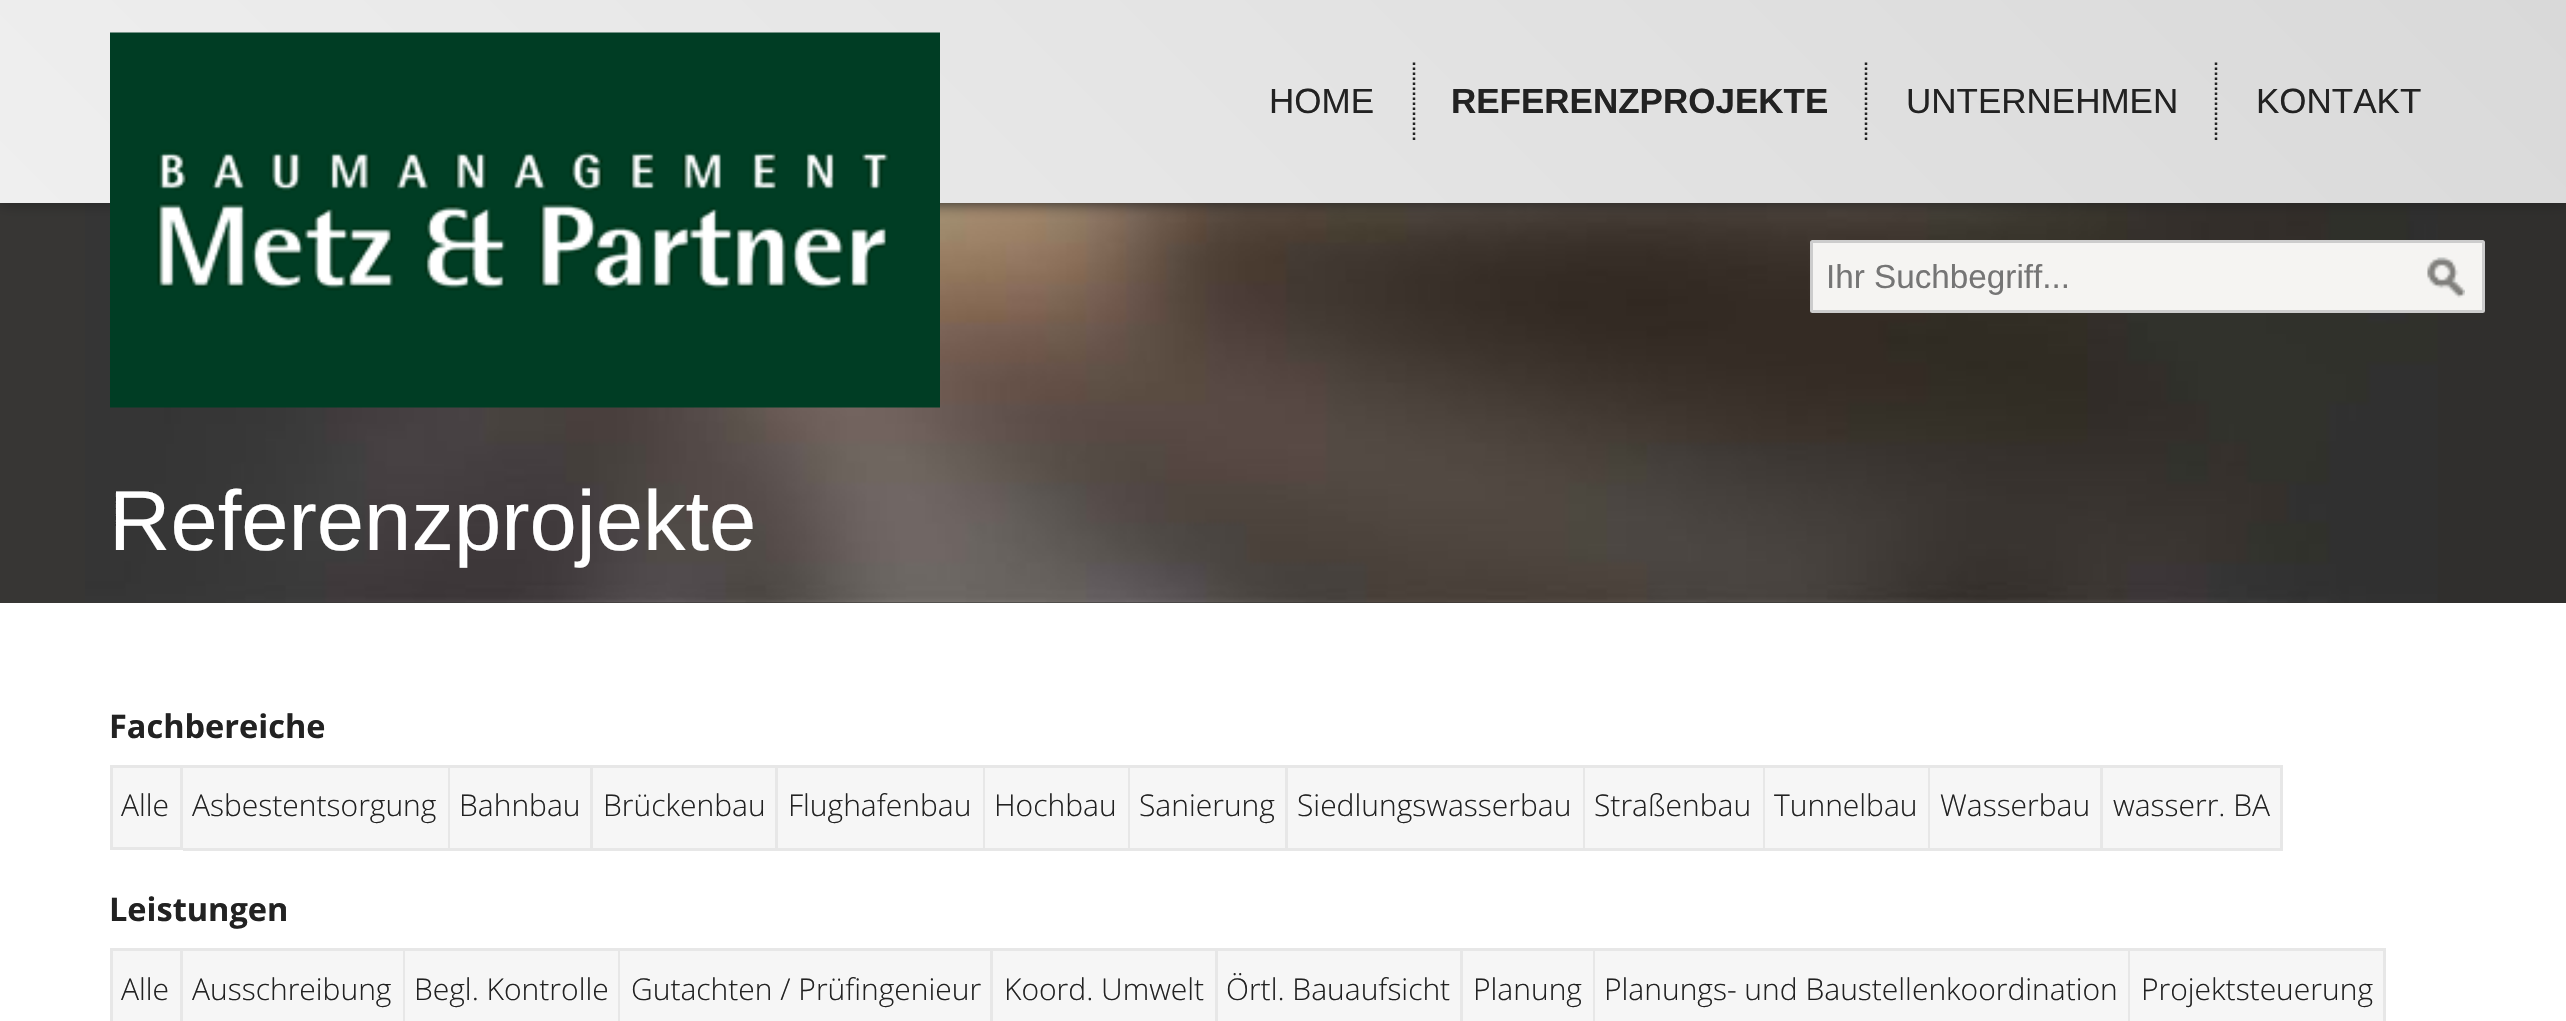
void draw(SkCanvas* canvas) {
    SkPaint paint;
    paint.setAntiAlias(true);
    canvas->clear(0xFFFFFFFF);
    {
        const SkColor colors[] = {0xFF373634, 0xFF302F2D};
        const float stops[] = {0, 1};
        const SkPoint ends[] = {{0, 403}, {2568, 402}};
        paint.setShader(SkGradientShader::MakeLinear(ends, colors, stops, 2, SkTileMode::kClamp));
        paint.setAlpha(255);
    }
    canvas->drawRect(SkRect::MakeXYWH(0, 203, 2566, 400), paint);
    canvas->drawImageRect(SkImages::DeferredFromEncodedData(SkData::MakeFromFileName("img2.png")), SkRect::MakeXYWH(85, 203, 2353, 400), SkSamplingOptions());
    paint.setShader(nullptr);
    paint.setColor(0xFF222222);
    paint.setMaskFilter(SkMaskFilter::MakeBlur(kNormal_SkBlurStyle, 7.5f));
    canvas->drawRect(SkRect::MakeXYWH(0, 0, 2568, 203), paint);
    paint.setMaskFilter(nullptr);
    {
        const SkColor colors[] = {0xFFEFEFEF, 0xFFD9D9D9};
        const float stops[] = {0, 1};
        const SkPoint ends[] = {{591, 794}, {1976, -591}};
        paint.setShader(SkGradientShader::MakeLinear(ends, colors, stops, 2, SkTileMode::kClamp));
        paint.setAlpha(255);
    }
    canvas->drawRect(SkRect::MakeXYWH(0, 0, 2566, 203), paint);
    canvas->drawImageRect(SkImages::DeferredFromEncodedData(SkData::MakeFromFileName("img1.png")), SkRect::MakeXYWH(110, 32, 830, 376), SkSamplingOptions());
    paint.setStyle(SkPaint::kStroke_Style);
    paint.setStrokeWidth(2.5f);
    paint.setShader(nullptr);
    paint.setColor(0xFF222222);
    paint.setPathEffect(SkDashPathEffect::Make({{2.5f, 2.5f}}, 0));
    canvas->drawPath(SkPathBuilder().moveTo(1414, 62.5f).lineTo(1414, 140).detach(), paint);
    paint.setPathEffect(nullptr);
    SkFont font1(fontMgr->matchFamilyStyle("Liberation Sans", SkFontStyle::Normal()), 35);
    font1.setSubpixel(true);
    paint.setStyle(SkPaint::kFill_Style);
    canvas->drawString("HOME", 1269, 113, font1, paint);
    paint.setStyle(SkPaint::kStroke_Style);
    paint.setPathEffect(SkDashPathEffect::Make({{2.5f, 2.5f}}, 0));
    canvas->drawPath(SkPathBuilder().moveTo(1866, 62.5f).lineTo(1866, 140).detach(), paint);
    paint.setPathEffect(nullptr);
    SkFont font2(fontMgr->matchFamilyStyle("Liberation Sans", SkFontStyle::Bold()), 35);
    font2.setSubpixel(true);
    paint.setStyle(SkPaint::kFill_Style);
    canvas->drawString("REFERENZPROJEKTE", 1451, 113, font2, paint);
    paint.setStyle(SkPaint::kStroke_Style);
    paint.setPathEffect(SkDashPathEffect::Make({{2.5f, 2.5f}}, 0));
    canvas->drawPath(SkPathBuilder().moveTo(2216, 62.5f).lineTo(2216, 140).detach(), paint);
    paint.setPathEffect(nullptr);
    paint.setStyle(SkPaint::kFill_Style);
    canvas->drawString("UNTERNEHMEN", 1906, 113, font1, paint);
    canvas->drawString("KONTAKT", 2256, 113, font1, paint);
    paint.setColor(0xFFF5F4F2);
    canvas->drawRoundRect(SkRect::MakeXYWH(1811.5f, 241.5f, 672, 70), 1, 1, paint);
    paint.setStyle(SkPaint::kStroke_Style);
    paint.setStrokeWidth(3);
    paint.setColor(0xFFCCCCCC);
    canvas->drawRoundRect(SkRect::MakeXYWH(1811.5f, 241.5f, 672, 70), 1, 1, paint);
    SkFont font3(fontMgr->matchFamilyStyle("Liberation Sans", SkFontStyle::Normal()), 33.25f);
    font3.setSubpixel(true);
    paint.setStyle(SkPaint::kFill_Style);
    paint.setColor(0xFF757575);
    canvas->drawString("Ihr Suchbegriff...", 1826, 288, font3, paint);
    canvas->drawImageRect(SkImages::DeferredFromEncodedData(SkData::MakeFromFileName("img3.png")), SkRect::MakeXYWH(2427, 257, 38, 41), SkSamplingOptions());
    SkFont font4(fontMgr->matchFamilyStyle("Liberation Sans", SkFontStyle::Normal()), 85);
    font4.setSubpixel(true);
    paint.setColor(0xFFFFFFFF);
    canvas->drawString("Referenzprojekte", 109, 550, font4, paint);
    SkFont font5(fontMgr->matchFamilyStyle("Open Sans", SkFontStyle::Bold()), 32.5f);
    font5.setSubpixel(true);
    paint.setColor(0xFF222222);
    canvas->drawString("Fachbereiche", 109, 738, font5, paint);
    paint.setColor(0xFFF6F6F6);
    canvas->drawRect(SkRect::MakeXYWH(111.5f, 766.5f, 70, 82), paint);
    paint.setStyle(SkPaint::kStroke_Style);
    paint.setColor(0xFFE7E7E7);
    canvas->drawRect(SkRect::MakeXYWH(111.5f, 766.5f, 70, 82), paint);
    SkFont font6(fontMgr->matchFamilyStyle("Open Sans", SkFontStyle(300, SkFontStyle::kNormal_Width, SkFontStyle::kUpright_Slant)), 30);
    font6.setSubpixel(true);
    paint.setStyle(SkPaint::kFill_Style);
    paint.setColor(0xFF222222);
    canvas->drawString("Alle", 121, 816, font6, paint);
    paint.setColor(0xFFF6F6F6);
    canvas->drawRect(SkRect::MakeXYWH(183, 768, 265, 80), paint);
    paint.setColor(0xFFE7E7E7);
    canvas->drawRect(SkRect::MakeXYWH(183, 765, 2100, 3), paint);
    canvas->drawRect(SkRect::MakeXYWH(448, 765, 2, 85), paint);
    canvas->drawRect(SkRect::MakeXYWH(183, 848, 267, 3), paint);
    paint.setColor(0xFF222222);
    canvas->drawString("Asbestentsorgung", 192, 816, font6, paint);
    paint.setColor(0xFFF6F6F6);
    canvas->drawRect(SkRect::MakeXYWH(450, 768, 140, 80), paint);
    paint.setColor(0xFFE7E7E7);
    canvas->drawRect(SkRect::MakeXYWH(590, 765, 3, 85), paint);
    canvas->drawRect(SkRect::MakeXYWH(450, 848, 143, 3), paint);
    paint.setColor(0xFF222222);
    canvas->drawString("Bahnbau", 459, 816, font6, paint);
    paint.setColor(0xFFF6F6F6);
    canvas->drawRect(SkRect::MakeXYWH(593, 768, 182, 80), paint);
    paint.setColor(0xFFE7E7E7);
    canvas->drawRect(SkRect::MakeXYWH(775, 765, 3, 85), paint);
    canvas->drawRect(SkRect::MakeXYWH(593, 848, 185, 3), paint);
    paint.setColor(0xFF222222);
    canvas->drawString("Brückenbau", 603, 816, font6, paint);
    paint.setColor(0xFFF6F6F6);
    canvas->drawRect(SkRect::MakeXYWH(778, 768, 205, 80), paint);
    paint.setColor(0xFFE7E7E7);
    canvas->drawRect(SkRect::MakeXYWH(983, 765, 2, 85), paint);
    canvas->drawRect(SkRect::MakeXYWH(778, 848, 207, 3), paint);
    paint.setColor(0xFF222222);
    canvas->drawString("Flughafenbau", 788, 816, font6, paint);
    paint.setColor(0xFFF6F6F6);
    canvas->drawRect(SkRect::MakeXYWH(985, 768, 143, 80), paint);
    paint.setColor(0xFFE7E7E7);
    canvas->drawRect(SkRect::MakeXYWH(1128, 765, 2, 85), paint);
    canvas->drawRect(SkRect::MakeXYWH(985, 848, 145, 3), paint);
    paint.setColor(0xFF222222);
    canvas->drawString("Hochbau", 994, 816, font6, paint);
    paint.setColor(0xFFF6F6F6);
    canvas->drawRect(SkRect::MakeXYWH(1130, 768, 155, 80), paint);
    paint.setColor(0xFFE7E7E7);
    canvas->drawRect(SkRect::MakeXYWH(1285, 765, 3, 85), paint);
    canvas->drawRect(SkRect::MakeXYWH(1130, 848, 158, 3), paint);
    paint.setColor(0xFF222222);
    canvas->drawString("Sanierung", 1139, 816, font6, paint);
    paint.setColor(0xFFF6F6F6);
    canvas->drawRect(SkRect::MakeXYWH(1288, 768, 295, 80), paint);
    paint.setColor(0xFFE7E7E7);
    canvas->drawRect(SkRect::MakeXYWH(1583, 765, 2, 85), paint);
    canvas->drawRect(SkRect::MakeXYWH(1288, 848, 297, 3), paint);
    paint.setColor(0xFF222222);
    canvas->drawString("Siedlungswasserbau", 1297, 816, font6, paint);
    paint.setColor(0xFFF6F6F6);
    canvas->drawRect(SkRect::MakeXYWH(1585, 768, 178, 80), paint);
    paint.setColor(0xFFE7E7E7);
    canvas->drawRect(SkRect::MakeXYWH(1763, 765, 2, 85), paint);
    canvas->drawRect(SkRect::MakeXYWH(1585, 848, 180, 3), paint);
    paint.setColor(0xFF222222);
    canvas->drawString("Straßenbau", 1594, 816, font6, paint);
    paint.setColor(0xFFF6F6F6);
    canvas->drawRect(SkRect::MakeXYWH(1765, 768, 163, 80), paint);
    paint.setColor(0xFFE7E7E7);
    canvas->drawRect(SkRect::MakeXYWH(1928, 765, 2, 85), paint);
    canvas->drawRect(SkRect::MakeXYWH(1765, 848, 165, 3), paint);
    paint.setColor(0xFF222222);
    canvas->drawString("Tunnelbau", 1774, 816, font6, paint);
    paint.setColor(0xFFF6F6F6);
    canvas->drawRect(SkRect::MakeXYWH(1930, 768, 170, 80), paint);
    paint.setColor(0xFFE7E7E7);
    canvas->drawRect(SkRect::MakeXYWH(2100, 765, 3, 85), paint);
    canvas->drawRect(SkRect::MakeXYWH(1930, 848, 173, 3), paint);
    paint.setColor(0xFF222222);
    canvas->drawString("Wasserbau", 1940, 816, font6, paint);
    paint.setColor(0xFFF6F6F6);
    canvas->drawRect(SkRect::MakeXYWH(2103, 768, 177, 80), paint);
    paint.setColor(0xFFE7E7E7);
    canvas->drawRect(SkRect::MakeXYWH(2280, 765, 3, 85), paint);
    canvas->drawRect(SkRect::MakeXYWH(2103, 848, 180, 3), paint);
    paint.setColor(0xFF222222);
    canvas->drawString("wasserr. BA", 2113, 816, font6, paint);
    canvas->drawString("Leistungen", 109, 921, font5, paint);
    paint.setColor(0xFFF6F6F6);
    canvas->drawRect(SkRect::MakeXYWH(111.5f, 949.5f, 70, 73), paint);
    paint.setStyle(SkPaint::kStroke_Style);
    paint.setColor(0xFFE7E7E7);
    canvas->drawRect(SkRect::MakeXYWH(111.5f, 949.5f, 70, 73), paint);
    paint.setStyle(SkPaint::kFill_Style);
    paint.setColor(0xFF222222);
    canvas->drawString("Alle", 121, 1000, font6, paint);
    paint.setColor(0xFFF6F6F6);
    canvas->drawRect(SkRect::MakeXYWH(183, 951, 220, 70), paint);
    paint.setColor(0xFFE7E7E7);
    canvas->drawRect(SkRect::MakeXYWH(183, 948, 2202, 3), paint);
    canvas->drawRect(SkRect::MakeXYWH(403, 948, 2, 73), paint);
    paint.setColor(0xFF222222);
    canvas->drawString("Ausschreibung", 192, 1000, font6, paint);
    paint.setColor(0xFFF6F6F6);
    canvas->drawRect(SkRect::MakeXYWH(405, 951, 213, 70), paint);
    paint.setColor(0xFFE7E7E7);
    canvas->drawRect(SkRect::MakeXYWH(618, 948, 2, 73), paint);
    paint.setColor(0xFF222222);
    canvas->drawString("Begl. Kontrolle", 414, 1000, font6, paint);
    paint.setColor(0xFFF6F6F6);
    canvas->drawRect(SkRect::MakeXYWH(620, 951, 370, 70), paint);
    paint.setColor(0xFFE7E7E7);
    canvas->drawRect(SkRect::MakeXYWH(990, 948, 3, 73), paint);
    paint.setColor(0xFF222222);
    canvas->drawString("Gutachten / Prüfingenieur", 631, 1000, font6, paint);
    paint.setColor(0xFFF6F6F6);
    canvas->drawRect(SkRect::MakeXYWH(993, 951, 222, 70), paint);
    paint.setColor(0xFFE7E7E7);
    canvas->drawRect(SkRect::MakeXYWH(1215, 948, 3, 73), paint);
    paint.setColor(0xFF222222);
    canvas->drawString("Koord. Umwelt", 1004, 1000, font6, paint);
    paint.setColor(0xFFF6F6F6);
    canvas->drawRect(SkRect::MakeXYWH(1218, 951, 242, 70), paint);
    paint.setColor(0xFFE7E7E7);
    canvas->drawRect(SkRect::MakeXYWH(1460, 948, 3, 73), paint);
    paint.setColor(0xFF222222);
    canvas->drawString("Örtl. Bauaufsicht", 1226, 1000, font6, paint);
    paint.setColor(0xFFF6F6F6);
    canvas->drawRect(SkRect::MakeXYWH(1463, 951, 130, 70), paint);
    paint.setColor(0xFFE7E7E7);
    canvas->drawRect(SkRect::MakeXYWH(1593, 948, 2, 73), paint);
    paint.setColor(0xFF222222);
    canvas->drawString("Planung", 1473, 1000, font6, paint);
    paint.setColor(0xFFF6F6F6);
    canvas->drawRect(SkRect::MakeXYWH(1595, 951, 533, 70), paint);
    paint.setColor(0xFFE7E7E7);
    canvas->drawRect(SkRect::MakeXYWH(2128, 948, 2, 73), paint);
    paint.setColor(0xFF222222);
    canvas->drawString("Planungs- und Baustellenkoordination", 1604, 1000, font6, paint);
    paint.setColor(0xFFF6F6F6);
    canvas->drawRect(SkRect::MakeXYWH(2130, 951, 253, 70), paint);
    paint.setColor(0xFFE7E7E7);
    canvas->drawRect(SkRect::MakeXYWH(2383, 948, 3, 73), paint);
    paint.setColor(0xFF222222);
    canvas->drawString("Projektsteuerung", 2141, 1000, font6, paint);
}
